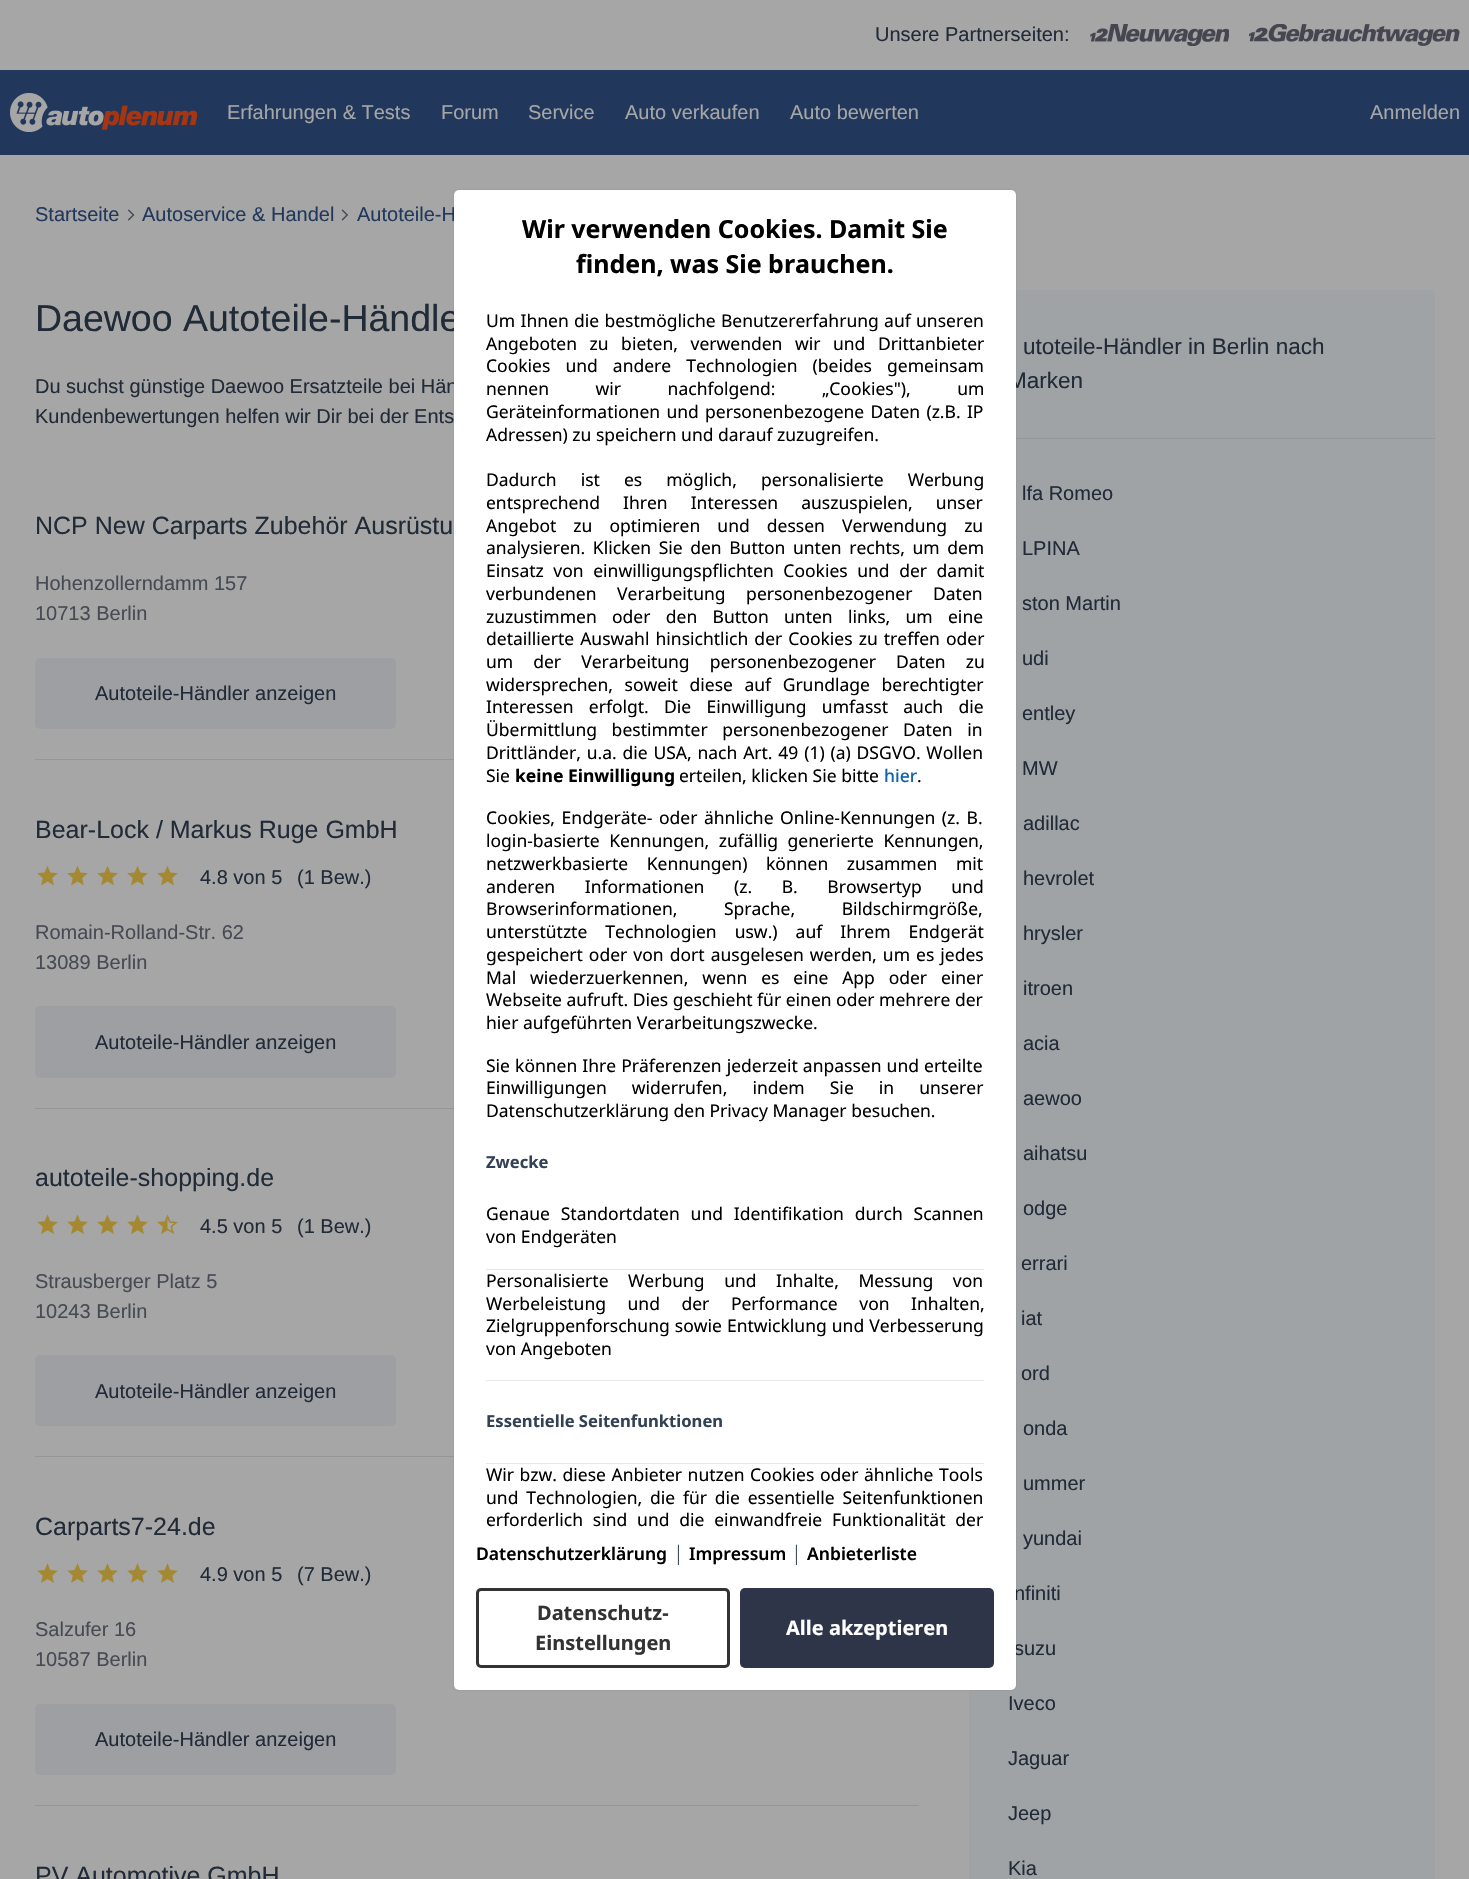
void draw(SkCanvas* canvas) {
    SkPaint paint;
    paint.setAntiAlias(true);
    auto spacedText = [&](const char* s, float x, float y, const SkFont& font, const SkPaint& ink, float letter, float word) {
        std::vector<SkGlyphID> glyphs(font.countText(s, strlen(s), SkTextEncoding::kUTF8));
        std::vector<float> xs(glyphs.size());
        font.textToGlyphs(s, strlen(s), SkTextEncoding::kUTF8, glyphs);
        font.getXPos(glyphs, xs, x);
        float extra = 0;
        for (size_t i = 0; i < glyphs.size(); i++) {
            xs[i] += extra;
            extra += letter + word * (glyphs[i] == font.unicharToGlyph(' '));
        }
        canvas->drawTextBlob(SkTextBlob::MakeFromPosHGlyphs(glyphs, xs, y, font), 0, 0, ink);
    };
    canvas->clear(0xFFA6A6A6);
    SkFont font1(fontMgr->matchFamilyStyle("Liberation Sans", SkFontStyle::Normal()), 20);
    font1.setSubpixel(true);
    paint.setColor(0xFF212A37);
    canvas->drawString("Unsere Partnerseiten:", 875, 41, font1, paint);
    canvas->drawImageRect(SkImages::DeferredFromEncodedData(SkData::MakeFromFileName("img1.png")), SkRect::MakeXYWH(1090, 24, 139, 22), SkSamplingOptions());
    canvas->drawImageRect(SkImages::DeferredFromEncodedData(SkData::MakeFromFileName("img2.png")), SkRect::MakeXYWH(1249, 24, 211, 22), SkSamplingOptions());
    paint.setColor(0xFF21375B);
    canvas->drawRect(SkRect::MakeXYWH(0, 70, 1469, 85), paint);
    canvas->drawImageRect(SkImages::DeferredFromEncodedData(SkData::MakeFromFileName("img3.png")), SkRect::MakeXYWH(10, 93, 187, 39), SkSamplingOptions());
    paint.setColor(0xFFA6A6A6);
    canvas->drawString("Erfahrungen & Tests", 227, 119, font1, paint);
    canvas->drawString("Forum", 441, 119, font1, paint);
    canvas->drawString("Service", 528, 119, font1, paint);
    canvas->drawString("Auto verkaufen", 625, 119, font1, paint);
    canvas->drawString("Auto bewerten", 790, 119, font1, paint);
    canvas->drawString("Anmelden", 1370, 119, font1, paint);
    paint.setColor(0xFF21375B);
    canvas->drawString("Startseite", 35, 221, font1, paint);
    canvas->drawImageRect(SkImages::DeferredFromEncodedData(SkData::MakeFromFileName("img4.png")), SkRect::MakeXYWH(127, 209, 8, 12), SkSamplingOptions());
    canvas->drawString("Autoservice & Handel", 142, 221, font1, paint);
    canvas->drawImageRect(SkImages::DeferredFromEncodedData(SkData::MakeFromFileName("img5.png")), SkRect::MakeXYWH(341, 209, 8, 12), SkSamplingOptions());
    canvas->drawString("Autoteile-H", 357, 221, font1, paint);
    SkFont font2(fontMgr->matchFamilyStyle("Liberation Sans", SkFontStyle::Normal()), 37.5f);
    font2.setSubpixel(true);
    paint.setColor(0xFF212A37);
    canvas->drawString("Daewoo Autoteile-Händle", 35, 331, font2, paint);
    canvas->drawString("Du suchst günstige Daewoo Ersatzteile bei Hän", 35, 393, font1, paint);
    canvas->drawString("Kundenbewertungen helfen wir Dir bei der Ents", 35, 423, font1, paint);
    paint.setColor(0xFF959699);
    canvas->drawRect(SkRect::MakeXYWH(35, 759, 419, 1), paint);
    SkFont font3(fontMgr->matchFamilyStyle("Liberation Sans", SkFontStyle::Normal()), 25);
    font3.setSubpixel(true);
    paint.setColor(0xFF212A37);
    canvas->drawString("NCP New Carparts Zubehör Ausrüstu", 35, 534, font3, paint);
    paint.setColor(0xFF464A53);
    canvas->drawString("Hohenzollerndamm 157", 35, 590, font1, paint);
    canvas->drawString("10713 Berlin", 35, 620, font1, paint);
    paint.setColor(0xFF9D9FA2);
    canvas->drawRoundRect(SkRect::MakeXYWH(35, 658, 361, 71), 5, 5, paint);
    paint.setColor(0xFF212A37);
    canvas->drawString("Autoteile-Händler anzeigen", 95, 700, font1, paint);
    paint.setColor(0xFF959699);
    canvas->drawRect(SkRect::MakeXYWH(35, 1108, 419, 1), paint);
    paint.setColor(0xFF212A37);
    canvas->drawString("Bear-Lock / Markus Ruge GmbH", 35, 838, font3, paint);
    canvas->drawImageRect(SkImages::DeferredFromEncodedData(SkData::MakeFromFileName("img6.png")), SkRect::MakeXYWH(37, 865, 21, 21), SkSamplingOptions());
    canvas->drawImageRect(SkImages::DeferredFromEncodedData(SkData::MakeFromFileName("img6.png")), SkRect::MakeXYWH(67, 865, 21, 21), SkSamplingOptions());
    canvas->drawImageRect(SkImages::DeferredFromEncodedData(SkData::MakeFromFileName("img6.png")), SkRect::MakeXYWH(97, 865, 21, 21), SkSamplingOptions());
    canvas->drawImageRect(SkImages::DeferredFromEncodedData(SkData::MakeFromFileName("img6.png")), SkRect::MakeXYWH(127, 865, 21, 21), SkSamplingOptions());
    canvas->drawImageRect(SkImages::DeferredFromEncodedData(SkData::MakeFromFileName("img6.png")), SkRect::MakeXYWH(157, 865, 21, 21), SkSamplingOptions());
    canvas->drawString("4.8 von 5", 200, 884, font1, paint);
    canvas->drawString("(1 Bew.)", 297, 884, font1, paint);
    paint.setColor(0xFF464A53);
    canvas->drawString("Romain-Rolland-Str. 62", 35, 939, font1, paint);
    canvas->drawString("13089 Berlin", 35, 969, font1, paint);
    paint.setColor(0xFF9D9FA2);
    canvas->drawRoundRect(SkRect::MakeXYWH(35, 1006, 361, 72), 5, 5, paint);
    paint.setColor(0xFF212A37);
    canvas->drawString("Autoteile-Händler anzeigen", 95, 1049, font1, paint);
    paint.setColor(0xFF959699);
    canvas->drawRect(SkRect::MakeXYWH(35, 1456, 419, 1), paint);
    paint.setColor(0xFF212A37);
    canvas->drawString("autoteile-shopping.de", 35, 1186, font3, paint);
    canvas->drawImageRect(SkImages::DeferredFromEncodedData(SkData::MakeFromFileName("img7.png")), SkRect::MakeXYWH(37, 1214, 21, 20), SkSamplingOptions());
    canvas->drawImageRect(SkImages::DeferredFromEncodedData(SkData::MakeFromFileName("img7.png")), SkRect::MakeXYWH(67, 1214, 21, 20), SkSamplingOptions());
    canvas->drawImageRect(SkImages::DeferredFromEncodedData(SkData::MakeFromFileName("img7.png")), SkRect::MakeXYWH(97, 1214, 21, 20), SkSamplingOptions());
    canvas->drawImageRect(SkImages::DeferredFromEncodedData(SkData::MakeFromFileName("img7.png")), SkRect::MakeXYWH(127, 1214, 21, 20), SkSamplingOptions());
    canvas->drawImageRect(SkImages::DeferredFromEncodedData(SkData::MakeFromFileName("img8.png")), SkRect::MakeXYWH(157, 1214, 21, 20), SkSamplingOptions());
    canvas->drawString("4.5 von 5", 200, 1233, font1, paint);
    canvas->drawString("(1 Bew.)", 297, 1233, font1, paint);
    paint.setColor(0xFF464A53);
    canvas->drawString("Strausberger Platz 5", 35, 1288, font1, paint);
    canvas->drawString("10243 Berlin", 35, 1318, font1, paint);
    paint.setColor(0xFF9D9FA2);
    canvas->drawRoundRect(SkRect::MakeXYWH(35, 1355, 361, 71), 5, 5, paint);
    paint.setColor(0xFF212A37);
    canvas->drawString("Autoteile-Händler anzeigen", 95, 1398, font1, paint);
    paint.setColor(0xFF959699);
    canvas->drawRect(SkRect::MakeXYWH(35, 1805, 884, 1), paint);
    paint.setColor(0xFF212A37);
    canvas->drawString("Carparts7-24.de", 35, 1535, font3, paint);
    canvas->drawImageRect(SkImages::DeferredFromEncodedData(SkData::MakeFromFileName("img9.png")), SkRect::MakeXYWH(37, 1563, 21, 20), SkSamplingOptions());
    canvas->drawImageRect(SkImages::DeferredFromEncodedData(SkData::MakeFromFileName("img9.png")), SkRect::MakeXYWH(67, 1563, 21, 20), SkSamplingOptions());
    canvas->drawImageRect(SkImages::DeferredFromEncodedData(SkData::MakeFromFileName("img9.png")), SkRect::MakeXYWH(97, 1563, 21, 20), SkSamplingOptions());
    canvas->drawImageRect(SkImages::DeferredFromEncodedData(SkData::MakeFromFileName("img9.png")), SkRect::MakeXYWH(127, 1563, 21, 20), SkSamplingOptions());
    canvas->drawImageRect(SkImages::DeferredFromEncodedData(SkData::MakeFromFileName("img9.png")), SkRect::MakeXYWH(157, 1563, 21, 20), SkSamplingOptions());
    canvas->drawString("4.9 von 5", 200, 1581, font1, paint);
    canvas->drawString("(7 Bew.)", 297, 1581, font1, paint);
    paint.setColor(0xFF464A53);
    canvas->drawString("Salzufer 16", 35, 1636, font1, paint);
    canvas->drawString("10587 Berlin", 35, 1666, font1, paint);
    paint.setColor(0xFF9D9FA2);
    canvas->drawRoundRect(SkRect::MakeXYWH(35, 1704, 361, 71), 5, 5, paint);
    paint.setColor(0xFF212A37);
    canvas->drawString("Autoteile-Händler anzeigen", 95, 1746, font1, paint);
    canvas->drawString("PV Automotive GmbH", 35, 1884, font3, paint);
    paint.setColor(0xFFA0A3A6);
    canvas->drawRoundRect(SkRect::MakeXYWH(969, 290, 466, 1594), 5, 5, paint);
    SkFont font4(fontMgr->matchFamilyStyle("Liberation Sans", SkFontStyle::Normal()), 22.5f);
    font4.setSubpixel(true);
    paint.setColor(0xFF212A37);
    canvas->drawString("utoteile-Händler in Berlin nach", 1023, 354, font4, paint);
    canvas->drawString("Marken", 1008, 388, font4, paint);
    paint.setColor(0xFF959699);
    canvas->drawRect(SkRect::MakeXYWH(1016, 438, 419, 1), paint);
    paint.setColor(0xFF212A37);
    canvas->drawString("lfa Romeo", 1022, 500, font1, paint);
    canvas->drawString("LPINA", 1022, 555, font1, paint);
    canvas->drawString("ston Martin", 1022, 610, font1, paint);
    canvas->drawString("udi", 1022, 665, font1, paint);
    canvas->drawString("entley", 1022, 720, font1, paint);
    canvas->drawString("MW", 1022, 775, font1, paint);
    canvas->drawString("adillac", 1023, 830, font1, paint);
    canvas->drawString("hevrolet", 1023, 885, font1, paint);
    canvas->drawString("hrysler", 1023, 940, font1, paint);
    canvas->drawString("itroen", 1023, 995, font1, paint);
    canvas->drawString("acia", 1023, 1050, font1, paint);
    canvas->drawString("aewoo", 1023, 1105, font1, paint);
    canvas->drawString("aihatsu", 1023, 1160, font1, paint);
    canvas->drawString("odge", 1023, 1215, font1, paint);
    canvas->drawString("errari", 1021, 1270, font1, paint);
    canvas->drawString("iat", 1021, 1325, font1, paint);
    canvas->drawString("ord", 1021, 1380, font1, paint);
    canvas->drawString("onda", 1023, 1435, font1, paint);
    canvas->drawString("ummer", 1023, 1490, font1, paint);
    canvas->drawString("yundai", 1023, 1545, font1, paint);
    canvas->drawString("nfiniti", 1014, 1600, font1, paint);
    canvas->drawString("suzu", 1014, 1655, font1, paint);
    canvas->drawString("Iveco", 1008, 1710, font1, paint);
    canvas->drawString("Jaguar", 1008, 1765, font1, paint);
    canvas->drawString("Jeep", 1008, 1820, font1, paint);
    canvas->drawString("Kia", 1008, 1875, font1, paint);
    paint.setColor(0x1F000000);
    paint.setMaskFilter(SkMaskFilter::MakeBlur(kNormal_SkBlurStyle, 1));
    canvas->drawRoundRect(SkRect::MakeXYWH(454, 190, 562, 1500), 5, 5, paint);
    paint.setMaskFilter(nullptr);
    paint.setColor(0xFFFFFFFF);
    canvas->drawRoundRect(SkRect::MakeXYWH(454, 190, 562, 1500), 5, 5, paint);
    SkFont font5(fontMgr->matchFamilyStyle("Noto Sans", SkFontStyle::Bold()), 25);
    font5.setSubpixel(true);
    paint.setColor(0xFF000000);
    canvas->drawString("Wir verwenden Cookies. Damit Sie", 522, 238, font5, paint);
    canvas->drawString("finden, was Sie brauchen.", 576, 273, font5, paint);
    SkFont font6(fontMgr->matchFamilyStyle("Noto Sans", SkFontStyle::Normal()), 17.5f);
    font6.setSubpixel(true);
    spacedText("Um Ihnen die bestmögliche Benutzererfahrung auf unseren", 486, 327, font6, paint, 0, 0.75f);
    spacedText("Angeboten zu bieten, verwenden wir und Drittanbieter", 486, 350, font6, paint, 0, 8);
    spacedText("Cookies und andere Technologien (beides gemeinsam", 486, 372, font6, paint, 0, 10.5f);
    spacedText("nennen wir nachfolgend: „Cookies\"), um", 486, 395, font6, paint, 0, 42);
    spacedText("Geräteinformationen und personenbezogene Daten (z.B. IP", 486, 418, font6, paint, 0, 1.75f);
    canvas->drawString("Adressen) zu speichern und darauf zuzugreifen.", 486, 441, font6, paint);
    spacedText("Dadurch ist es möglich, personalisierte Werbung", 486, 486, font6, paint, 0, 19.5f);
    spacedText("entsprechend Ihren Interessen auszuspielen, unser", 486, 509, font6, paint, 0, 18.5f);
    spacedText("Angebot zu optimieren und dessen Verwendung zu", 486, 532, font6, paint, 0, 12.5f);
    spacedText("analysieren. Klicken Sie den Button unten rechts, um dem", 486, 554, font6, paint, 0, 3);
    spacedText("Einsatz von einwilligungspflichten Cookies und der damit", 486, 577, font6, paint, 0, 5);
    spacedText("verbundenen Verarbeitung personenbezogener Daten", 486, 600, font6, paint, 0, 16);
    spacedText("zuzustimmen oder den Button unten links, um eine", 486, 623, font6, paint, 0, 10.75f);
    spacedText("detaillierte Auswahl hinsichtlich der Cookies zu treffen oder", 486, 645, font6, paint, 0, 1.5f);
    spacedText("um der Verarbeitung personenbezogener Daten zu", 486, 668, font6, paint, 0, 15.5f);
    spacedText("widersprechen, soweit diese auf Grundlage berechtigter", 486, 691, font6, paint, 0, 7);
    spacedText("Interessen erfolgt. Die Einwilligung umfasst auch die", 486, 713, font6, paint, 0, 10.75f);
    spacedText("Übermittlung bestimmter personenbezogener Daten in", 486, 736, font6, paint, 0, 10);
    spacedText("Drittländer, u.a. die USA, nach Art. 49 (1) (a) DSGVO. Wollen", 486, 759, font6, paint, 0, 1.25f);
    canvas->drawString("Sie", 486, 782, font6, paint);
    SkFont font7(fontMgr->matchFamilyStyle("Noto Sans", SkFontStyle::Bold()), 17.5f);
    font7.setSubpixel(true);
    canvas->drawString("keine Einwilligung", 515, 782, font7, paint);
    canvas->drawString("erteilen, klicken Sie bitte", 679, 782, font6, paint);
    SkFont font8(fontMgr->matchFamilyStyle("Noto Sans", SkFontStyle(500, SkFontStyle::kNormal_Width, SkFontStyle::kUpright_Slant)), 17.5f);
    font8.setSubpixel(true);
    paint.setColor(0xFF1166A8);
    canvas->drawString("hier", 884, 782, font8, paint);
    paint.setColor(0xFF000000);
    canvas->drawString(".", 917, 782, font6, paint);
    spacedText("Cookies, Endgeräte- oder ähnliche Online-Kennungen (z. B.", 486, 824, font6, paint, 0, 2);
    spacedText("login-basierte Kennungen, zufällig generierte Kennungen,", 486, 847, font6, paint, 0, 5);
    spacedText("netzwerkbasierte Kennungen) können zusammen mit", 486, 870, font6, paint, 0, 14);
    spacedText("anderen Informationen (z. B. Browsertyp und", 486, 893, font6, paint, 0, 25);
    spacedText("Browserinformationen, Sprache, Bildschirmgröße,", 486, 915, font6, paint, 0, 42);
    spacedText("unterstützte Technologien usw.) auf Ihrem Endgerät", 486, 938, font6, paint, 0, 13.5f);
    spacedText("gespeichert oder von dort ausgelesen werden, um es jedes", 486, 961, font6, paint, 0, 1.5f);
    spacedText("Mal wiederzuerkennen, wenn es eine App oder einer", 486, 984, font6, paint, 0, 9.25f);
    canvas->drawString("Webseite aufruft. Dies geschieht für einen oder mehrere der", 486, 1006, font6, paint);
    canvas->drawString("hier aufgeführten Verarbeitungszwecke.", 486, 1029, font6, paint);
    spacedText("Sie können Ihre Präferenzen jederzeit anpassen und erteilte", 486, 1072, font6, paint, 0, 0.5f);
    spacedText("Einwilligungen widerrufen, indem Sie in unserer", 486, 1094, font6, paint, 0, 20.5f);
    canvas->drawString("Datenschutzerklärung den Privacy Manager besuchen.", 486, 1117, font6, paint);
    SkFont font9(fontMgr->matchFamilyStyle("Noto Sans", SkFontStyle::Bold()), 16.6f);
    font9.setSubpixel(true);
    paint.setColor(0xFF334155);
    canvas->drawString("Zwecke", 486, 1168, font9, paint);
    paint.setColor(0xFF000000);
    spacedText("Genaue Standortdaten und Identifikation durch Scannen", 486, 1220, font6, paint, 0, 6.25f);
    canvas->drawString("von Endgeräten", 486, 1243, font6, paint);
    paint.setColor(0xFFE5E7EB);
    canvas->drawRect(SkRect::MakeXYWH(486, 1269, 498, 1), paint);
    paint.setColor(0xFF000000);
    spacedText("Personalisierte Werbung und Inhalte, Messung von", 486, 1287, font6, paint, 0, 15);
    spacedText("Werbeleistung und der Performance von Inhalten,", 486, 1310, font6, paint, 0, 17);
    spacedText("Zielgruppenforschung sowie Entwicklung und Verbesserung", 486, 1332, font6, paint, 0, 0.5f);
    canvas->drawString("von Angeboten", 486, 1355, font6, paint);
    paint.setColor(0xFFE5E7EB);
    canvas->drawRect(SkRect::MakeXYWH(486, 1380, 498, 1), paint);
    paint.setColor(0xFF334155);
    canvas->drawString("Essentielle Seitenfunktionen", 486, 1427, font9, paint);
    paint.setColor(0xFFE5E7EB);
    canvas->drawRect(SkRect::MakeXYWH(486, 1463, 498, 1), paint);
    paint.setColor(0xFF000000);
    spacedText("Wir bzw. diese Anbieter nutzen Cookies oder ähnliche Tools", 486, 1481, font6, paint, 0, 1);
    spacedText("und Technologien, die für die essentielle Seitenfunktionen", 486, 1504, font6, paint, 0, 3.25f);
    spacedText("erforderlich sind und die einwandfreie Funktionalität der", 486, 1526, font6, paint, 0, 5.25f);
    SkFont font10(fontMgr->matchFamilyStyle("Noto Sans", SkFontStyle(600, SkFontStyle::kNormal_Width, SkFontStyle::kUpright_Slant)), 17.5f);
    font10.setSubpixel(true);
    canvas->drawString("Datenschutzerklärung", 476, 1560, font10, paint);
    SkFont font11(fontMgr->matchFamilyStyle("Noto Sans", SkFontStyle(300, SkFontStyle::kNormal_Width, SkFontStyle::kUpright_Slant)), 20);
    font11.setSubpixel(true);
    paint.setColor(0xFF334155);
    canvas->drawString("|", 673, 1560, font11, paint);
    paint.setColor(0xFF000000);
    canvas->drawString("Impressum", 689, 1560, font10, paint);
    paint.setColor(0xFF334155);
    canvas->drawString("|", 791, 1560, font11, paint);
    paint.setColor(0xFF000000);
    canvas->drawString("Anbieterliste", 807, 1560, font10, paint);
    paint.setStyle(SkPaint::kStroke_Style);
    paint.setStrokeWidth(3);
    paint.setColor(0xFF333333);
    canvas->drawRoundRect(SkRect::MakeXYWH(477.5f, 1589.5f, 251, 77), 3.5f, 3.5f, paint);
    SkFont font12(fontMgr->matchFamilyStyle("Noto Sans", SkFontStyle::Bold()), 20);
    font12.setSubpixel(true);
    paint.setStyle(SkPaint::kFill_Style);
    canvas->drawString("Datenschutz-", 537, 1620, font12, paint);
    canvas->drawString("Einstellungen", 535, 1650, font12, paint);
    paint.setColor(0xFF2F3549);
    canvas->drawRoundRect(SkRect::MakeXYWH(740, 1588, 254, 80), 5, 5, paint);
    paint.setColor(0xFFFFFFFF);
    canvas->drawString("Alle akzeptieren", 786, 1635, font12, paint);
}
